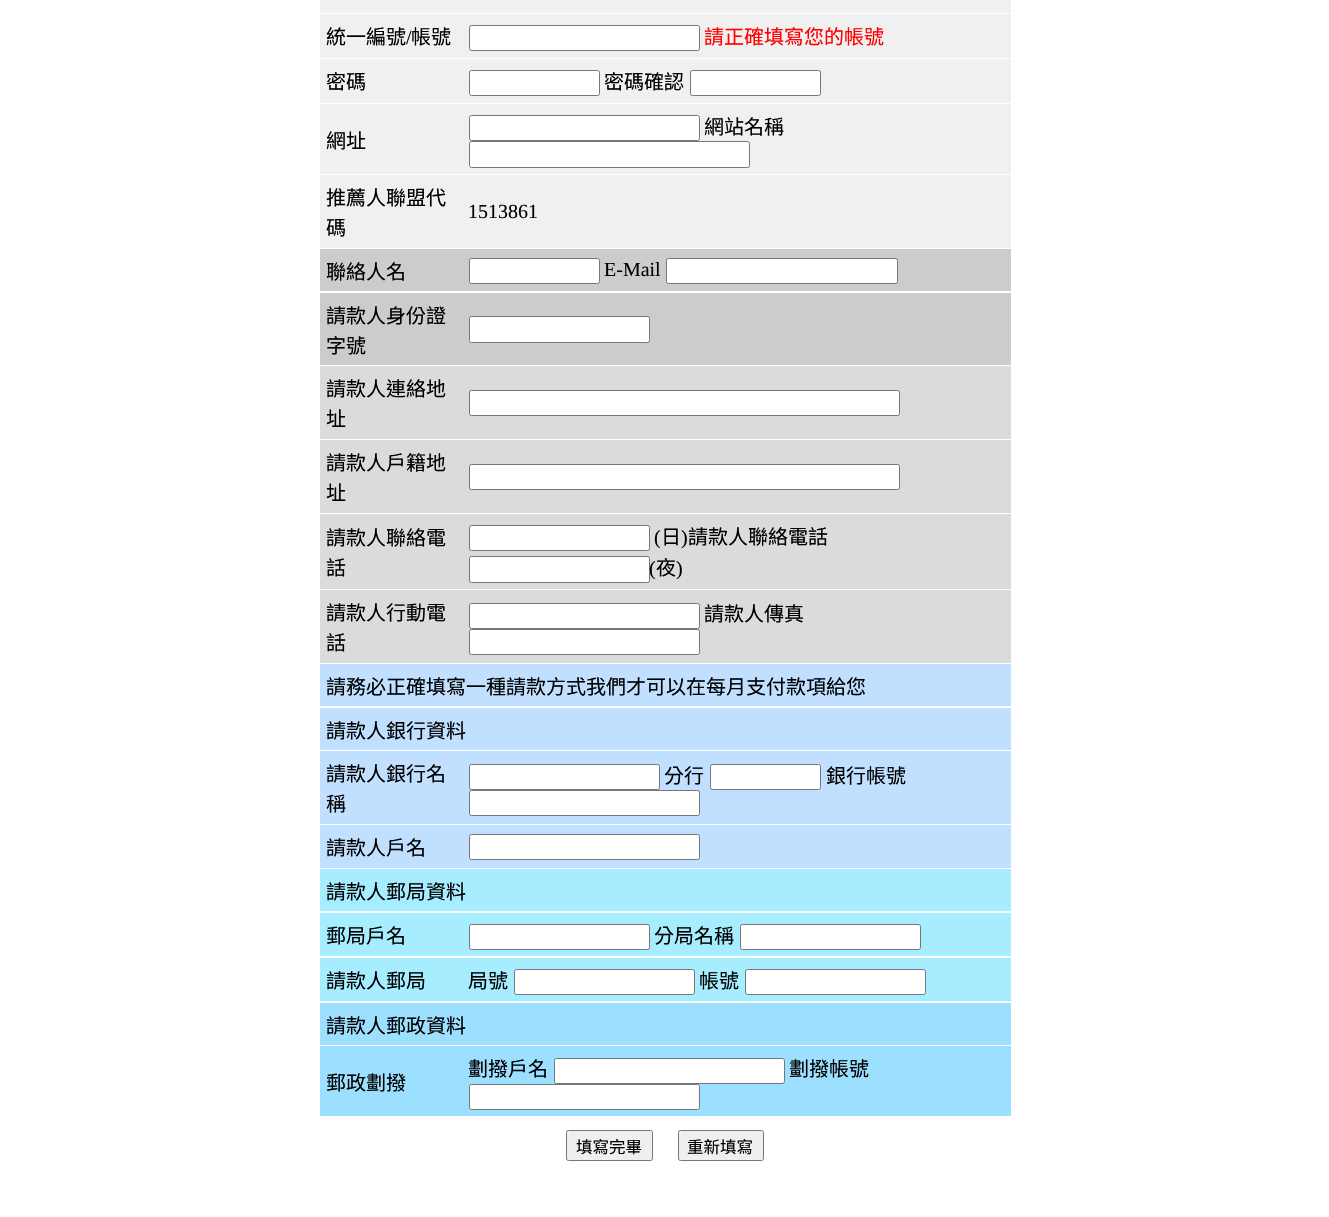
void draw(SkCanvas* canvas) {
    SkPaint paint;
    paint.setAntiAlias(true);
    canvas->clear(0xFFFFFFFF);
    paint.setColor(0xFFF0F0F0);
    canvas->drawRect(SkRect::MakeXYWH(320, 0, 691, 13), paint);
    canvas->drawRect(SkRect::MakeXYWH(320, 14, 691, 44), paint);
    SkFont font1(fontMgr->matchFamilyStyle("Noto Sans CJK TC", SkFontStyle::Normal()), 20);
    font1.setSubpixel(true);
    paint.setColor(0xFF000000);
    canvas->drawString("統一編號", 326, 44, font1, paint);
    SkFont font2(fontMgr->matchFamilyStyle("Liberation Serif", SkFontStyle::Normal()), 20);
    font2.setSubpixel(true);
    canvas->drawString("/", 406, 44, font2, paint);
    canvas->drawString("帳號", 411, 44, font1, paint);
    paint.setColor(0xFFFFFFFF);
    canvas->drawRoundRect(SkRect::MakeXYWH(469.5f, 25.5f, 230, 25), 2, 2, paint);
    paint.setStyle(SkPaint::kStroke_Style);
    paint.setStrokeWidth(1);
    paint.setColor(0xFF767676);
    canvas->drawRoundRect(SkRect::MakeXYWH(469.5f, 25.5f, 230, 25), 2, 2, paint);
    paint.setStyle(SkPaint::kFill_Style);
    paint.setColor(0xFFFF0000);
    canvas->drawString("請正確填寫您的帳號", 704, 44, font1, paint);
    paint.setColor(0xFFF0F0F0);
    canvas->drawRect(SkRect::MakeXYWH(320, 59, 691, 44), paint);
    paint.setColor(0xFF000000);
    canvas->drawString("密碼", 326, 89, font1, paint);
    paint.setColor(0xFFFFFFFF);
    canvas->drawRoundRect(SkRect::MakeXYWH(469.5f, 70.5f, 130, 25), 2, 2, paint);
    paint.setStyle(SkPaint::kStroke_Style);
    paint.setColor(0xFF767676);
    canvas->drawRoundRect(SkRect::MakeXYWH(469.5f, 70.5f, 130, 25), 2, 2, paint);
    paint.setStyle(SkPaint::kFill_Style);
    paint.setColor(0xFF000000);
    canvas->drawString("密碼確認", 604, 89, font1, paint);
    paint.setColor(0xFFFFFFFF);
    canvas->drawRoundRect(SkRect::MakeXYWH(690.5f, 70.5f, 130, 25), 2, 2, paint);
    paint.setStyle(SkPaint::kStroke_Style);
    paint.setColor(0xFF767676);
    canvas->drawRoundRect(SkRect::MakeXYWH(690.5f, 70.5f, 130, 25), 2, 2, paint);
    paint.setStyle(SkPaint::kFill_Style);
    paint.setColor(0xFFF0F0F0);
    canvas->drawRect(SkRect::MakeXYWH(320, 104, 691, 70), paint);
    paint.setColor(0xFFFFFFFF);
    canvas->drawRoundRect(SkRect::MakeXYWH(469.5f, 115.5f, 230, 25), 2, 2, paint);
    paint.setStyle(SkPaint::kStroke_Style);
    paint.setColor(0xFF767676);
    canvas->drawRoundRect(SkRect::MakeXYWH(469.5f, 115.5f, 230, 25), 2, 2, paint);
    paint.setStyle(SkPaint::kFill_Style);
    paint.setColor(0xFF000000);
    canvas->drawString("網站名稱", 704, 134, font1, paint);
    paint.setColor(0xFFFFFFFF);
    canvas->drawRoundRect(SkRect::MakeXYWH(469.5f, 141.5f, 280, 26), 2, 2, paint);
    paint.setStyle(SkPaint::kStroke_Style);
    paint.setColor(0xFF767676);
    canvas->drawRoundRect(SkRect::MakeXYWH(469.5f, 141.5f, 280, 26), 2, 2, paint);
    paint.setStyle(SkPaint::kFill_Style);
    paint.setColor(0xFF000000);
    canvas->drawString("網址", 326, 148, font1, paint);
    paint.setColor(0xFFF0F0F0);
    canvas->drawRect(SkRect::MakeXYWH(320, 175, 691, 73), paint);
    paint.setColor(0xFF000000);
    canvas->drawString("推薦人聯盟代", 326, 205, font1, paint);
    canvas->drawString("碼", 326, 235, font1, paint);
    canvas->drawString("1513861", 468, 218, font2, paint);
    paint.setColor(0xFFCCCCCC);
    canvas->drawRect(SkRect::MakeXYWH(320, 249, 691, 42), paint);
    paint.setColor(0xFF000000);
    canvas->drawString("聯絡人名", 326, 279, font1, paint);
    paint.setColor(0xFFFFFFFF);
    canvas->drawRoundRect(SkRect::MakeXYWH(469.5f, 258.5f, 130, 25), 2, 2, paint);
    paint.setStyle(SkPaint::kStroke_Style);
    paint.setColor(0xFF767676);
    canvas->drawRoundRect(SkRect::MakeXYWH(469.5f, 258.5f, 130, 25), 2, 2, paint);
    paint.setStyle(SkPaint::kFill_Style);
    paint.setColor(0xFF000000);
    canvas->drawString("E-Mail", 604, 276, font2, paint);
    paint.setColor(0xFFFFFFFF);
    canvas->drawRoundRect(SkRect::MakeXYWH(666.5f, 258.5f, 231, 25), 2, 2, paint);
    paint.setStyle(SkPaint::kStroke_Style);
    paint.setColor(0xFF767676);
    canvas->drawRoundRect(SkRect::MakeXYWH(666.5f, 258.5f, 231, 25), 2, 2, paint);
    paint.setStyle(SkPaint::kFill_Style);
    paint.setColor(0xFFCCCCCC);
    canvas->drawRect(SkRect::MakeXYWH(320, 293, 691, 72), paint);
    paint.setColor(0xFF000000);
    canvas->drawString("請款人身份證", 326, 323, font1, paint);
    canvas->drawString("字號", 326, 353, font1, paint);
    paint.setColor(0xFFFFFFFF);
    canvas->drawRoundRect(SkRect::MakeXYWH(469.5f, 316.5f, 180, 26), 2, 2, paint);
    paint.setStyle(SkPaint::kStroke_Style);
    paint.setColor(0xFF767676);
    canvas->drawRoundRect(SkRect::MakeXYWH(469.5f, 316.5f, 180, 26), 2, 2, paint);
    paint.setStyle(SkPaint::kFill_Style);
    paint.setColor(0xFFDBDBDB);
    canvas->drawRect(SkRect::MakeXYWH(320, 366, 691, 73), paint);
    paint.setColor(0xFF000000);
    canvas->drawString("請款人連絡地", 326, 396, font1, paint);
    canvas->drawString("址", 326, 426, font1, paint);
    paint.setColor(0xFFFFFFFF);
    canvas->drawRoundRect(SkRect::MakeXYWH(469.5f, 390.5f, 430, 25), 2, 2, paint);
    paint.setStyle(SkPaint::kStroke_Style);
    paint.setColor(0xFF767676);
    canvas->drawRoundRect(SkRect::MakeXYWH(469.5f, 390.5f, 430, 25), 2, 2, paint);
    paint.setStyle(SkPaint::kFill_Style);
    paint.setColor(0xFFDBDBDB);
    canvas->drawRect(SkRect::MakeXYWH(320, 440, 691, 73), paint);
    paint.setColor(0xFF000000);
    canvas->drawString("請款人戶籍地", 326, 470, font1, paint);
    canvas->drawString("址", 326, 500, font1, paint);
    paint.setColor(0xFFFFFFFF);
    canvas->drawRoundRect(SkRect::MakeXYWH(469.5f, 464.5f, 430, 25), 2, 2, paint);
    paint.setStyle(SkPaint::kStroke_Style);
    paint.setColor(0xFF767676);
    canvas->drawRoundRect(SkRect::MakeXYWH(469.5f, 464.5f, 430, 25), 2, 2, paint);
    paint.setStyle(SkPaint::kFill_Style);
    paint.setColor(0xFFDBDBDB);
    canvas->drawRect(SkRect::MakeXYWH(320, 514, 691, 75), paint);
    paint.setColor(0xFF000000);
    canvas->drawString("請款人聯絡電", 326, 545, font1, paint);
    canvas->drawString("話", 326, 575, font1, paint);
    paint.setColor(0xFFFFFFFF);
    canvas->drawRoundRect(SkRect::MakeXYWH(469.5f, 525.5f, 180, 25), 2, 2, paint);
    paint.setStyle(SkPaint::kStroke_Style);
    paint.setColor(0xFF767676);
    canvas->drawRoundRect(SkRect::MakeXYWH(469.5f, 525.5f, 180, 25), 2, 2, paint);
    paint.setStyle(SkPaint::kFill_Style);
    paint.setColor(0xFF000000);
    canvas->drawString("(", 654, 544, font2, paint);
    canvas->drawString("日", 661, 544, font1, paint);
    canvas->drawString(")", 681, 544, font2, paint);
    canvas->drawString("請款人聯絡電話", 688, 544, font1, paint);
    paint.setColor(0xFFFFFFFF);
    canvas->drawRoundRect(SkRect::MakeXYWH(469.5f, 556.5f, 180, 26), 2, 2, paint);
    paint.setStyle(SkPaint::kStroke_Style);
    paint.setColor(0xFF767676);
    canvas->drawRoundRect(SkRect::MakeXYWH(469.5f, 556.5f, 180, 26), 2, 2, paint);
    paint.setStyle(SkPaint::kFill_Style);
    paint.setColor(0xFF000000);
    canvas->drawString("(", 649, 575, font2, paint);
    canvas->drawString("夜", 656, 575, font1, paint);
    canvas->drawString(")", 676, 575, font2, paint);
    paint.setColor(0xFFDBDBDB);
    canvas->drawRect(SkRect::MakeXYWH(320, 590, 691, 73), paint);
    paint.setColor(0xFF000000);
    canvas->drawString("請款人行動電", 326, 620, font1, paint);
    canvas->drawString("話", 326, 650, font1, paint);
    paint.setColor(0xFFFFFFFF);
    canvas->drawRoundRect(SkRect::MakeXYWH(469.5f, 603.5f, 230, 25), 2, 2, paint);
    paint.setStyle(SkPaint::kStroke_Style);
    paint.setColor(0xFF767676);
    canvas->drawRoundRect(SkRect::MakeXYWH(469.5f, 603.5f, 230, 25), 2, 2, paint);
    paint.setStyle(SkPaint::kFill_Style);
    paint.setColor(0xFF000000);
    canvas->drawString("請款人傳真", 704, 621, font1, paint);
    paint.setColor(0xFFFFFFFF);
    canvas->drawRoundRect(SkRect::MakeXYWH(469.5f, 629.5f, 230, 25), 2, 2, paint);
    paint.setStyle(SkPaint::kStroke_Style);
    paint.setColor(0xFF767676);
    canvas->drawRoundRect(SkRect::MakeXYWH(469.5f, 629.5f, 230, 25), 2, 2, paint);
    paint.setStyle(SkPaint::kFill_Style);
    paint.setColor(0xFFC1E0FF);
    canvas->drawRect(SkRect::MakeXYWH(320, 664, 691, 42), paint);
    paint.setColor(0xFF000000);
    canvas->drawString("請務必正確填寫一種請款方式我們才可以在每月支付款項給您", 326, 694, font1, paint);
    paint.setColor(0xFFC1E0FF);
    canvas->drawRect(SkRect::MakeXYWH(320, 708, 691, 42), paint);
    paint.setColor(0xFF000000);
    canvas->drawString("請款人銀行資料", 326, 738, font1, paint);
    paint.setColor(0xFFC1E0FF);
    canvas->drawRect(SkRect::MakeXYWH(320, 751, 691, 73), paint);
    paint.setColor(0xFF000000);
    canvas->drawString("請款人銀行名", 326, 781, font1, paint);
    canvas->drawString("稱", 326, 811, font1, paint);
    paint.setColor(0xFFFFFFFF);
    canvas->drawRoundRect(SkRect::MakeXYWH(469.5f, 764.5f, 190, 25), 2, 2, paint);
    paint.setStyle(SkPaint::kStroke_Style);
    paint.setColor(0xFF767676);
    canvas->drawRoundRect(SkRect::MakeXYWH(469.5f, 764.5f, 190, 25), 2, 2, paint);
    paint.setStyle(SkPaint::kFill_Style);
    paint.setColor(0xFF000000);
    canvas->drawString("分行", 664, 783, font1, paint);
    paint.setColor(0xFFFFFFFF);
    canvas->drawRoundRect(SkRect::MakeXYWH(710.5f, 764.5f, 110, 25), 2, 2, paint);
    paint.setStyle(SkPaint::kStroke_Style);
    paint.setColor(0xFF767676);
    canvas->drawRoundRect(SkRect::MakeXYWH(710.5f, 764.5f, 110, 25), 2, 2, paint);
    paint.setStyle(SkPaint::kFill_Style);
    paint.setColor(0xFF000000);
    canvas->drawString("銀行帳號", 826, 783, font1, paint);
    paint.setColor(0xFFFFFFFF);
    canvas->drawRoundRect(SkRect::MakeXYWH(469.5f, 790.5f, 230, 25), 2, 2, paint);
    paint.setStyle(SkPaint::kStroke_Style);
    paint.setColor(0xFF767676);
    canvas->drawRoundRect(SkRect::MakeXYWH(469.5f, 790.5f, 230, 25), 2, 2, paint);
    paint.setStyle(SkPaint::kFill_Style);
    paint.setColor(0xFFC1E0FF);
    canvas->drawRect(SkRect::MakeXYWH(320, 825, 691, 43), paint);
    paint.setColor(0xFF000000);
    canvas->drawString("請款人戶名", 326, 855, font1, paint);
    paint.setColor(0xFFFFFFFF);
    canvas->drawRoundRect(SkRect::MakeXYWH(469.5f, 834.5f, 230, 25), 2, 2, paint);
    paint.setStyle(SkPaint::kStroke_Style);
    paint.setColor(0xFF767676);
    canvas->drawRoundRect(SkRect::MakeXYWH(469.5f, 834.5f, 230, 25), 2, 2, paint);
    paint.setStyle(SkPaint::kFill_Style);
    paint.setColor(0xFFA6EDFF);
    canvas->drawRect(SkRect::MakeXYWH(320, 869, 691, 42), paint);
    paint.setColor(0xFF000000);
    canvas->drawString("請款人郵局資料", 326, 899, font1, paint);
    paint.setColor(0xFFA6EDFF);
    canvas->drawRect(SkRect::MakeXYWH(320, 913, 691, 43), paint);
    paint.setColor(0xFF000000);
    canvas->drawString("郵局戶名", 326, 943, font1, paint);
    paint.setColor(0xFFFFFFFF);
    canvas->drawRoundRect(SkRect::MakeXYWH(469.5f, 924.5f, 180, 25), 2, 2, paint);
    paint.setStyle(SkPaint::kStroke_Style);
    paint.setColor(0xFF767676);
    canvas->drawRoundRect(SkRect::MakeXYWH(469.5f, 924.5f, 180, 25), 2, 2, paint);
    paint.setStyle(SkPaint::kFill_Style);
    paint.setColor(0xFF000000);
    canvas->drawString("分局名稱", 654, 943, font1, paint);
    paint.setColor(0xFFFFFFFF);
    canvas->drawRoundRect(SkRect::MakeXYWH(740.5f, 924.5f, 180, 25), 2, 2, paint);
    paint.setStyle(SkPaint::kStroke_Style);
    paint.setColor(0xFF767676);
    canvas->drawRoundRect(SkRect::MakeXYWH(740.5f, 924.5f, 180, 25), 2, 2, paint);
    paint.setStyle(SkPaint::kFill_Style);
    paint.setColor(0xFFA6EDFF);
    canvas->drawRect(SkRect::MakeXYWH(320, 958, 691, 43), paint);
    paint.setColor(0xFF000000);
    canvas->drawString("請款人郵局", 326, 988, font1, paint);
    canvas->drawString("局號", 468, 988, font1, paint);
    paint.setColor(0xFFFFFFFF);
    canvas->drawRoundRect(SkRect::MakeXYWH(514.5f, 969.5f, 180, 25), 2, 2, paint);
    paint.setStyle(SkPaint::kStroke_Style);
    paint.setColor(0xFF767676);
    canvas->drawRoundRect(SkRect::MakeXYWH(514.5f, 969.5f, 180, 25), 2, 2, paint);
    paint.setStyle(SkPaint::kFill_Style);
    paint.setColor(0xFF000000);
    canvas->drawString("帳號", 699, 988, font1, paint);
    paint.setColor(0xFFFFFFFF);
    canvas->drawRoundRect(SkRect::MakeXYWH(745.5f, 969.5f, 180, 25), 2, 2, paint);
    paint.setStyle(SkPaint::kStroke_Style);
    paint.setColor(0xFF767676);
    canvas->drawRoundRect(SkRect::MakeXYWH(745.5f, 969.5f, 180, 25), 2, 2, paint);
    paint.setStyle(SkPaint::kFill_Style);
    paint.setColor(0xFF9DDFFF);
    canvas->drawRect(SkRect::MakeXYWH(320, 1003, 691, 42), paint);
    paint.setColor(0xFF000000);
    canvas->drawString("請款人郵政資料", 326, 1033, font1, paint);
    paint.setColor(0xFF9DDFFF);
    canvas->drawRect(SkRect::MakeXYWH(320, 1046, 691, 70), paint);
    paint.setColor(0xFF000000);
    canvas->drawString("劃撥戶名", 468, 1076, font1, paint);
    paint.setColor(0xFFFFFFFF);
    canvas->drawRoundRect(SkRect::MakeXYWH(554.5f, 1058.5f, 230, 25), 2, 2, paint);
    paint.setStyle(SkPaint::kStroke_Style);
    paint.setColor(0xFF767676);
    canvas->drawRoundRect(SkRect::MakeXYWH(554.5f, 1058.5f, 230, 25), 2, 2, paint);
    paint.setStyle(SkPaint::kFill_Style);
    paint.setColor(0xFF000000);
    canvas->drawString("劃撥帳號", 789, 1076, font1, paint);
    paint.setColor(0xFFFFFFFF);
    canvas->drawRoundRect(SkRect::MakeXYWH(469.5f, 1084.5f, 230, 25), 2, 2, paint);
    paint.setStyle(SkPaint::kStroke_Style);
    paint.setColor(0xFF767676);
    canvas->drawRoundRect(SkRect::MakeXYWH(469.5f, 1084.5f, 230, 25), 2, 2, paint);
    paint.setStyle(SkPaint::kFill_Style);
    paint.setColor(0xFF000000);
    canvas->drawString("郵政劃撥", 326, 1090, font1, paint);
    paint.setColor(0xFFEFEFEF);
    canvas->drawRoundRect(SkRect::MakeXYWH(566.5f, 1130.5f, 86, 30), 2, 2, paint);
    paint.setStyle(SkPaint::kStroke_Style);
    paint.setColor(0xFF767676);
    canvas->drawRoundRect(SkRect::MakeXYWH(566.5f, 1130.5f, 86, 30), 2, 2, paint);
    SkFont font3(fontMgr->matchFamilyStyle("Noto Sans CJK TC", SkFontStyle::Normal()), 16.5f);
    font3.setSubpixel(true);
    paint.setStyle(SkPaint::kFill_Style);
    paint.setColor(0xFF000000);
    canvas->drawString("填寫完畢", 576, 1153, font3, paint);
    paint.setColor(0xFFEFEFEF);
    canvas->drawRoundRect(SkRect::MakeXYWH(678.5f, 1130.5f, 85, 30), 2, 2, paint);
    paint.setStyle(SkPaint::kStroke_Style);
    paint.setColor(0xFF767676);
    canvas->drawRoundRect(SkRect::MakeXYWH(678.5f, 1130.5f, 85, 30), 2, 2, paint);
    paint.setStyle(SkPaint::kFill_Style);
    paint.setColor(0xFF000000);
    canvas->drawString("重新填寫", 687, 1153, font3, paint);
}
